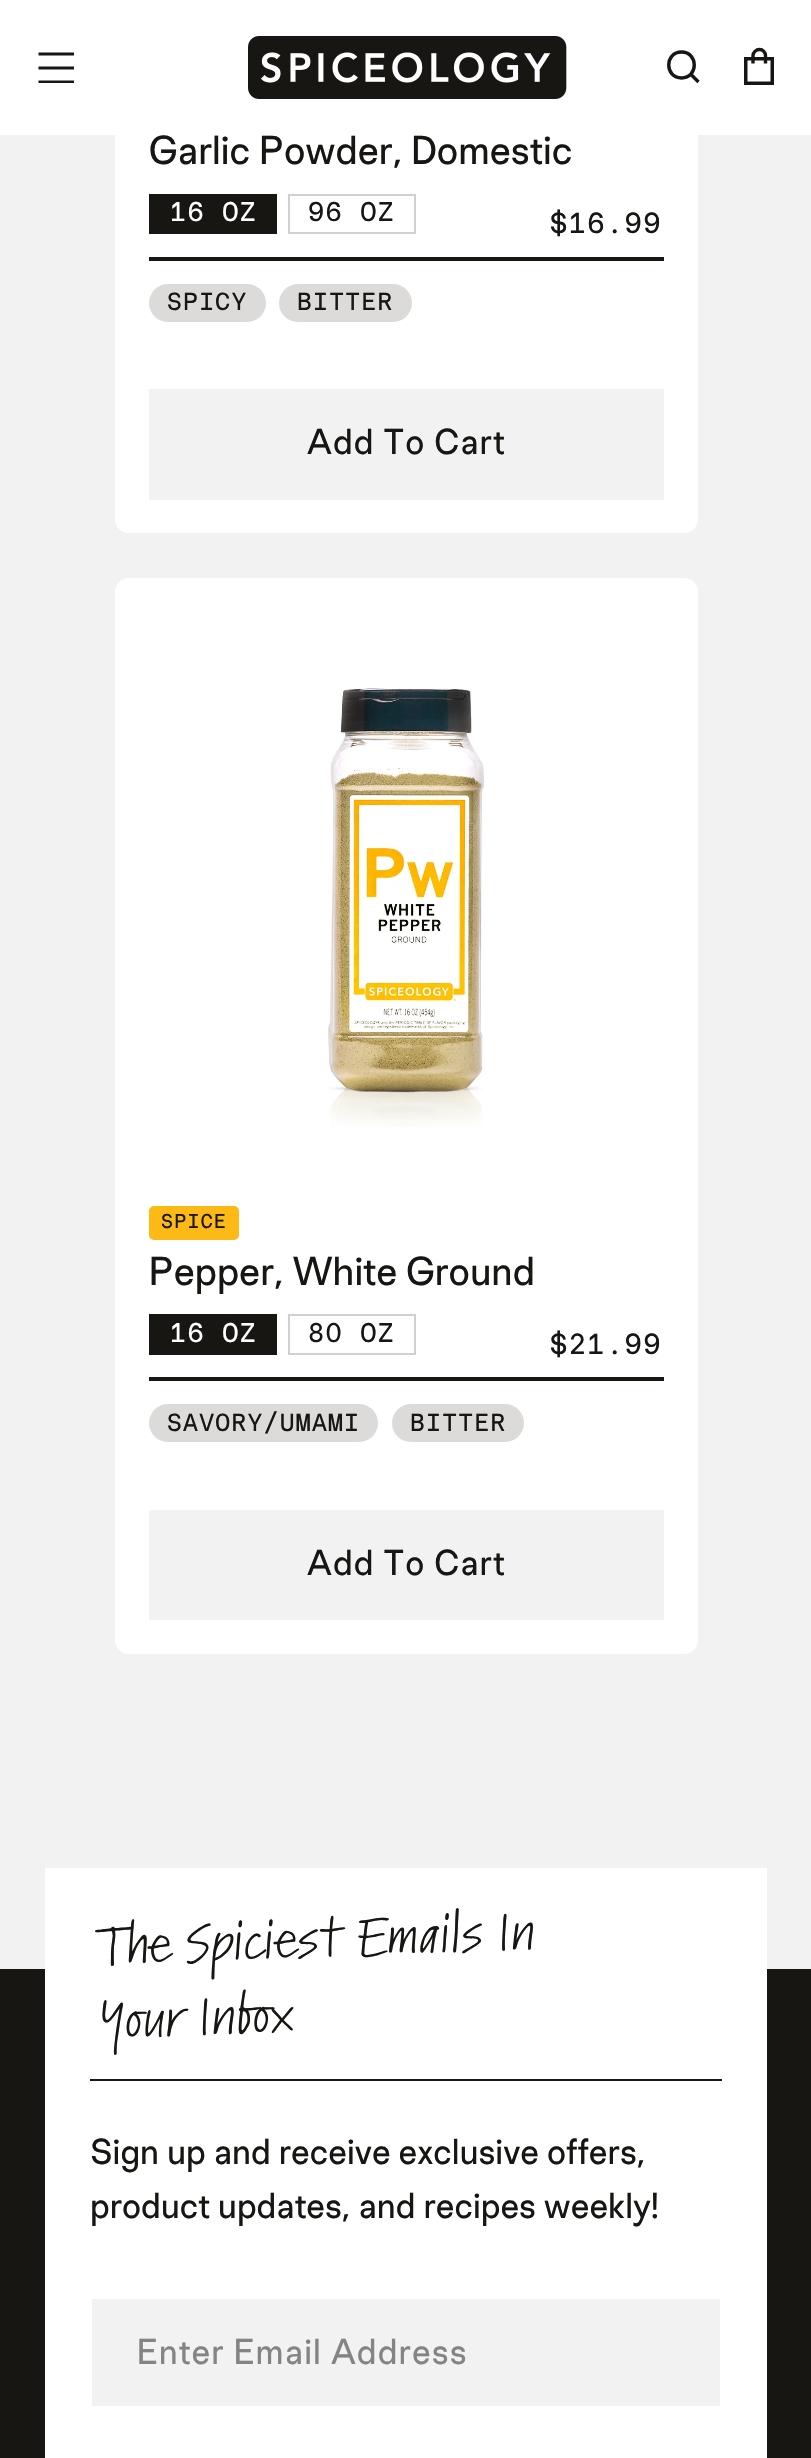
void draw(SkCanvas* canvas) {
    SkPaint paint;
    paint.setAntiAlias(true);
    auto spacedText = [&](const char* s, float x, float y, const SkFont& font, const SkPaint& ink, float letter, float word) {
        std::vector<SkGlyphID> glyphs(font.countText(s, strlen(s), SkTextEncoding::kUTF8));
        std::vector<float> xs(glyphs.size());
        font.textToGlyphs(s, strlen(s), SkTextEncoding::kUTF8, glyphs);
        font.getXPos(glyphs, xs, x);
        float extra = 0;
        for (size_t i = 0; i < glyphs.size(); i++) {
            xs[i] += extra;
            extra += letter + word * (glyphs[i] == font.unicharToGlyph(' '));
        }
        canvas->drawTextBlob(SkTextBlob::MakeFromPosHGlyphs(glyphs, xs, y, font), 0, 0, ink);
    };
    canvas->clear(0xFFF2F2F2);
    paint.setColor(0xFFFFFFFF);
    canvas->drawRoundRect(SkRect::MakeXYWH(115, -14, 583, 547), 14, 14, paint);
    canvas->drawRect(SkRect::MakeXYWH(0, 0, 811, 135), paint);
    paint.setStyle(SkPaint::kStroke_Style);
    paint.setStrokeWidth(3);
    paint.setColor(0xFF181613);
    canvas->drawPath(SkPathBuilder().moveTo(38.5f, 54).lineTo(74, 54).moveTo(38.5f, 68).lineTo(74, 68).detach(), paint);
    canvas->save();
    canvas->clipRect(SkRect::MakeXYWH(36, 52, 41, 31));
    canvas->drawPath(SkPathBuilder().moveTo(38.5f, 82).lineTo(74, 82).detach(), paint);
    canvas->restore();
    canvas->drawImageRect(SkImages::DeferredFromEncodedData(SkData::MakeFromFileName("img1.png")), SkRect::MakeXYWH(248, 36, 319, 63), SkSamplingOptions());
    paint.setStrokeWidth(3.4f);
    canvas->drawPath(SkPathBuilder().moveTo(691, 74.5f).lineTo(698.5f, 82).detach(), paint);
    paint.setStrokeCap(SkPaint::kRound_Cap);
    paint.setStrokeJoin(SkPaint::kRound_Join);
    canvas->drawPath(SkPathBuilder().moveTo(681.5f, 78).cubicTo(698.5f, 78, 698.5f, 52, 681.5f, 52).cubicTo(664.5f, 52, 664.5f, 78, 681.5f, 78).close().detach(), paint);
    paint.setStrokeCap(SkPaint::kButt_Cap);
    paint.setStrokeJoin(SkPaint::kMiter_Join);
    canvas->drawPath(SkPathBuilder().moveTo(765.5f, 63.5f).lineTo(765.5f, 55.5f).cubicTo(765.5f, 52.5f, 763, 49.5f, 759.5f, 49.5f).cubicTo(756, 49.5f, 753, 52.5f, 753, 55.5f).lineTo(753, 63.5f).detach(), paint);
    paint.setStrokeWidth(3.5f);
    canvas->drawRect(SkRect::MakeXYWH(745.75f, 58.75f, 26.5f, 24.5f), paint);
    SkFont font1(fontMgr->matchFamilyStyle("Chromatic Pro", SkFontStyle::Normal()), 40.5f);
    font1.setSubpixel(true);
    paint.setStyle(SkPaint::kFill_Style);
    canvas->drawString("Garlic Powder, Domestic", 149, 164, font1, paint);
    canvas->drawRect(SkRect::MakeXYWH(149, 194, 128, 40), paint);
    SkFont font2(fontMgr->matchFamilyStyle("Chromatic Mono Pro", SkFontStyle::Normal()), 27);
    font2.setSubpixel(true);
    paint.setColor(0xFFFFFFFF);
    spacedText("16 OZ", 170, 221, font2, paint, 1.25f, 0);
    paint.setStyle(SkPaint::kStroke_Style);
    paint.setStrokeWidth(2);
    paint.setColor(0xFFD1D0D0);
    canvas->drawRect(SkRect::MakeXYWH(289, 195, 126, 38), paint);
    paint.setStyle(SkPaint::kFill_Style);
    paint.setColor(0xFF181613);
    spacedText("96 OZ", 308, 221, font2, paint, 1.25f, 0);
    SkFont font3(fontMgr->matchFamilyStyle("Chromatic Mono Pro", SkFontStyle::Normal()), 29);
    font3.setSubpixel(true);
    spacedText("$16.99", 550, 233, font3, paint, 1.25f, 0);
    canvas->drawRect(SkRect::MakeXYWH(149, 257, 515, 4), paint);
    paint.setColor(0xFFDCDBDA);
    canvas->drawRoundRect(SkRect::MakeXYWH(149, 284, 117, 38), 19, 19, paint);
    SkFont font4(fontMgr->matchFamilyStyle("Chromatic Mono Pro", SkFontStyle::Normal()), 24.75f);
    font4.setSubpixel(true);
    paint.setColor(0xFF181613);
    spacedText("SPICY", 167, 310, font4, paint, 1.25f, 0);
    paint.setColor(0xFFDCDBDA);
    canvas->drawRoundRect(SkRect::MakeXYWH(279, 284, 133, 38), 19, 19, paint);
    paint.setColor(0xFF181613);
    spacedText("BITTER", 297, 310, font4, paint, 1.25f, 0);
    paint.setColor(0xFFF2F2F2);
    canvas->drawRect(SkRect::MakeXYWH(149, 389, 515, 111), paint);
    SkFont font5(fontMgr->matchFamilyStyle("Chromatic Pro", SkFontStyle::Normal()), 36);
    font5.setSubpixel(true);
    paint.setColor(0xFF181613);
    spacedText("Add To Cart", 307, 454, font5, paint, 1.1f, 0);
    paint.setColor(0xFFFFFFFF);
    canvas->drawRoundRect(SkRect::MakeXYWH(115, 578, 583, 1076), 14, 14, paint);
    canvas->drawImageRect(SkImages::DeferredFromEncodedData(SkData::MakeFromFileName("img2.png")), SkRect::MakeXYWH(328, 688, 156, 439), SkSamplingOptions());
    paint.setColor(0xFFFDB916);
    canvas->drawRoundRect(SkRect::MakeXYWH(150, 1207, 88, 32), 4, 4, paint);
    paint.setStyle(SkPaint::kStroke_Style);
    canvas->drawRoundRect(SkRect::MakeXYWH(150, 1207, 88, 32), 4, 4, paint);
    SkFont font6(fontMgr->matchFamilyStyle("Chromatic Mono Pro", SkFontStyle::Normal()), 20);
    font6.setSubpixel(true);
    paint.setStyle(SkPaint::kFill_Style);
    paint.setColor(0xFF181613);
    spacedText("SPICE", 161, 1228, font6, paint, 1.25f, 0);
    canvas->drawString("Pepper, White Ground", 149, 1285, font1, paint);
    canvas->drawRect(SkRect::MakeXYWH(149, 1314, 128, 41), paint);
    paint.setColor(0xFFFFFFFF);
    spacedText("16 OZ", 170, 1342, font2, paint, 1.25f, 0);
    paint.setStyle(SkPaint::kStroke_Style);
    paint.setColor(0xFFD1D0D0);
    canvas->drawRect(SkRect::MakeXYWH(289, 1315, 126, 39), paint);
    paint.setStyle(SkPaint::kFill_Style);
    paint.setColor(0xFF181613);
    spacedText("80 OZ", 308, 1342, font2, paint, 1.25f, 0);
    spacedText("$21.99", 550, 1354, font3, paint, 1.25f, 0);
    canvas->drawRect(SkRect::MakeXYWH(149, 1377, 515, 4), paint);
    paint.setColor(0xFFDCDBDA);
    canvas->drawRoundRect(SkRect::MakeXYWH(149, 1404, 229, 38), 19, 19, paint);
    paint.setColor(0xFF181613);
    spacedText("SAVORY/UMAMI", 167, 1431, font4, paint, 1.25f, 0);
    paint.setColor(0xFFDCDBDA);
    canvas->drawRoundRect(SkRect::MakeXYWH(392, 1404, 132, 38), 19, 19, paint);
    paint.setColor(0xFF181613);
    spacedText("BITTER", 410, 1431, font4, paint, 1.25f, 0);
    paint.setColor(0xFFF2F2F2);
    canvas->drawRect(SkRect::MakeXYWH(149, 1510, 515, 110), paint);
    paint.setColor(0xFF181613);
    spacedText("Add To Cart", 307, 1575, font5, paint, 1.1f, 0);
    canvas->drawRect(SkRect::MakeXYWH(0, 1969, 811, 489), paint);
    paint.setColor(0xFFFFFFFF);
    canvas->drawRect(SkRect::MakeXYWH(45, 1868, 722, 590), paint);
    SkFont font7(fontMgr->matchFamilyStyle("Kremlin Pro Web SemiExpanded", SkFontStyle::Normal()), 49.5f);
    font7.setSubpixel(true);
    paint.setColor(0xFF181613);
    canvas->save();
    canvas->rotate(-2, 98, 1965);
    canvas->drawString("The Spiciest Emails In", 98, 1965, font7, paint);
    canvas->restore();
    canvas->save();
    canvas->rotate(-2, 101, 2039);
    canvas->drawString("Your Inbox", 101, 2039, font7, paint);
    canvas->restore();
    canvas->drawRect(SkRect::MakeXYWH(90, 2079, 632, 2), paint);
    canvas->drawString("Sign up and receive exclusive offers,", 90, 2164, font5, paint);
    canvas->drawString("product updates, and recipes weekly!", 90, 2218, font5, paint);
    paint.setColor(0xFFF2F2F2);
    canvas->drawRect(SkRect::MakeXYWH(92, 2299, 628, 107), paint);
    paint.setColor(0xFF858483);
    spacedText("Enter Email Address", 137, 2364, font5, paint, 1.1f, 0);
}
